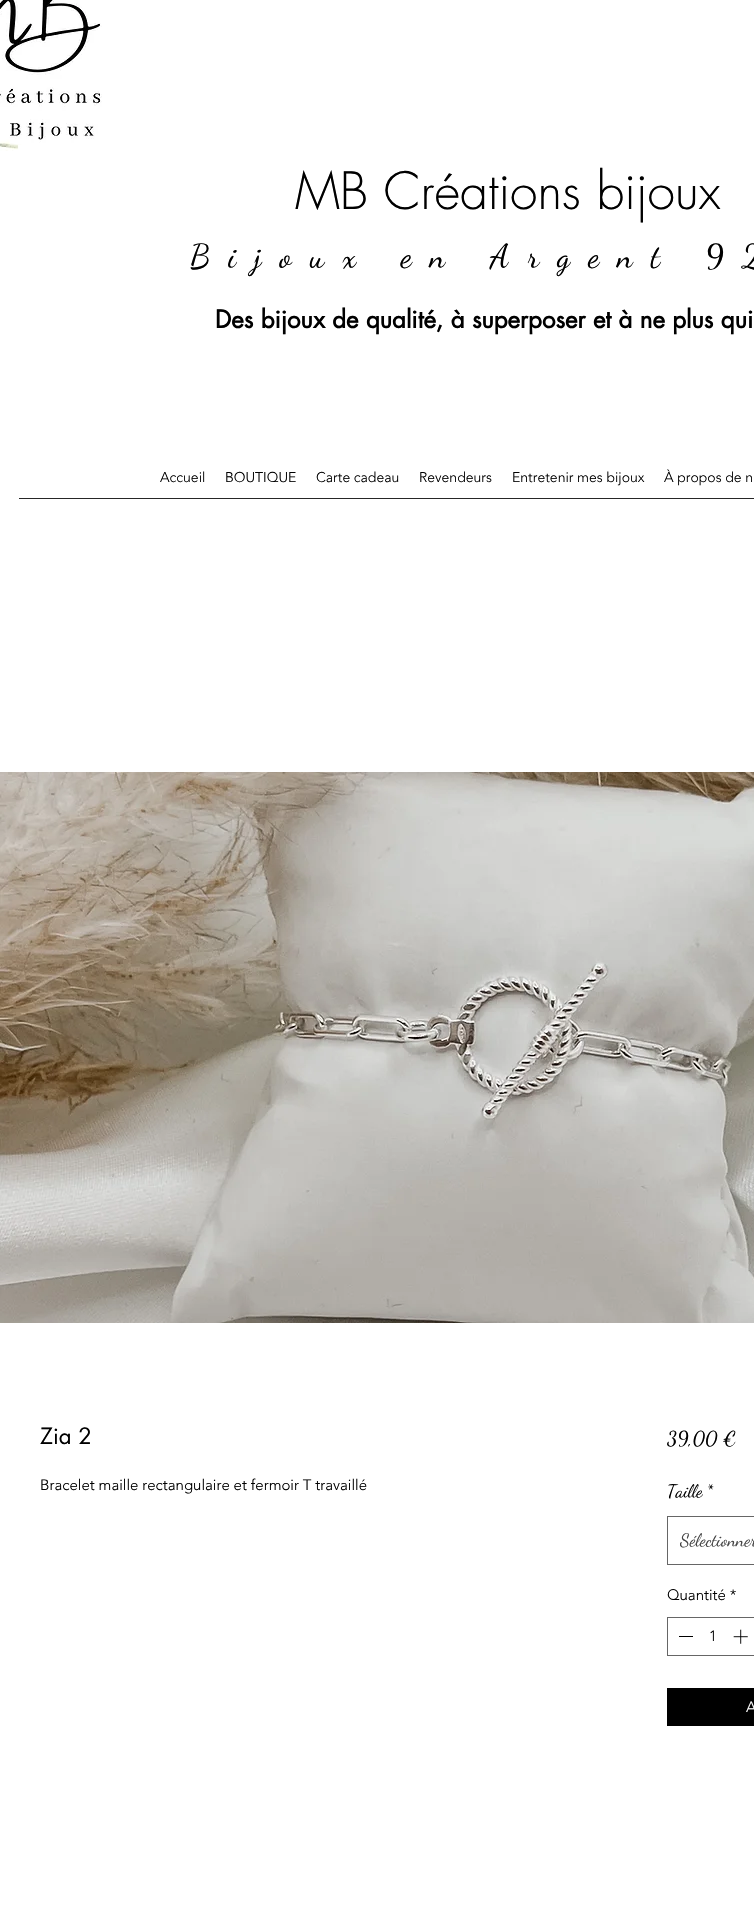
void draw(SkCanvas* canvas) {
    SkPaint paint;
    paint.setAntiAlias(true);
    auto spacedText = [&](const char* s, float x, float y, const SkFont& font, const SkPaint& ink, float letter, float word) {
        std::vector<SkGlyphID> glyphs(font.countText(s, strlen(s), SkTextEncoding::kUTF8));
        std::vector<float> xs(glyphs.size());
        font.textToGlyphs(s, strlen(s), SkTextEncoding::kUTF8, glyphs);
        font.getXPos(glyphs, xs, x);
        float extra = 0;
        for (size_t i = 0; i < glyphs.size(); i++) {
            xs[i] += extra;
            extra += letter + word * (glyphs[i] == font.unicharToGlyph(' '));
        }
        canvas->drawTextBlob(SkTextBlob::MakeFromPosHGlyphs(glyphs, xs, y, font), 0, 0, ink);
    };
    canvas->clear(0xFFFFFFFF);
    canvas->drawImageRect(SkImages::DeferredFromEncodedData(SkData::MakeFromFileName("img1.png")), SkRect::MakeXYWH(0, 0, 102, 151), SkSamplingOptions());
    SkFont font1(fontMgr->matchFamilyStyle("futura", SkFontStyle(300, SkFontStyle::kNormal_Width, SkFontStyle::kUpright_Slant)), 50);
    font1.setSubpixel(true);
    paint.setColor(0xFF000000);
    canvas->drawString("MB Créations bijoux", 295, 209, font1, paint);
    SkFont font2(fontMgr->matchFamilyStyle("Dancing Script", SkFontStyle::Normal()), 33);
    font2.setSubpixel(true);
    spacedText("Bijoux en Argent 92", 190, 267, font2, paint, 18.1f, 0);
    SkFont font3(fontMgr->matchFamilyStyle("futura", SkFontStyle::Bold()), 24);
    font3.setSubpixel(true);
    canvas->drawString("Des bijoux de qualité, à superposer et à ne plus qui", 215, 328, font3, paint);
    SkFont font4(fontMgr->matchFamilyStyle("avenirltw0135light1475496", SkFontStyle(300, SkFontStyle::kNormal_Width, SkFontStyle::kUpright_Slant)), 14);
    font4.setSubpixel(true);
    canvas->drawString("Accueil", 160, 482, font4, paint);
    canvas->drawString("BOUTIQUE", 225, 482, font4, paint);
    canvas->drawString("Carte cadeau", 316, 482, font4, paint);
    canvas->drawString("Revendeurs", 419, 482, font4, paint);
    canvas->drawString("Entretenir mes bijoux", 512, 482, font4, paint);
    canvas->drawString("À propos de n", 664, 482, font4, paint);
    paint.setColor(0xFF262626);
    canvas->drawRect(SkRect::MakeXYWH(19, 498, 735, 1), paint);
    canvas->drawImageRect(SkImages::DeferredFromEncodedData(SkData::MakeFromFileName("img2.png")), SkRect::MakeXYWH(0, 772, 754, 551), SkSamplingOptions());
    SkFont font5(fontMgr->matchFamilyStyle("futura", SkFontStyle::Normal()), 22);
    font5.setSubpixel(true);
    paint.setColor(0xFF000000);
    canvas->drawString("Zia 2", 40, 1444, font5, paint);
    SkFont font6(fontMgr->matchFamilyStyle("avenirltw0135light1475496", SkFontStyle(300, SkFontStyle::kNormal_Width, SkFontStyle::kUpright_Slant)), 15);
    font6.setSubpixel(true);
    canvas->drawString("Bracelet maille rectangulaire et fermoir T travaillé", 40, 1490, font6, paint);
    SkFont font7(fontMgr->matchFamilyStyle("Dancing Script", SkFontStyle::Normal()), 20);
    font7.setSubpixel(true);
    canvas->drawString("39,00 €", 667, 1445, font7, paint);
    SkFont font8(fontMgr->matchFamilyStyle("Dancing Script", SkFontStyle::Normal()), 18);
    font8.setSubpixel(true);
    canvas->drawString("Taille", 667, 1497, font8, paint);
    canvas->drawString("*", 706, 1497, font8, paint);
    paint.setStyle(SkPaint::kStroke_Style);
    paint.setStrokeWidth(1);
    paint.setColor(0xFF666666);
    canvas->drawRect(SkRect::MakeXYWH(667.5f, 1516.5f, 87, 48), paint);
    canvas->save();
    canvas->clipRect(SkRect::MakeXYWH(680, 1525, 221, 31));
    paint.setStyle(SkPaint::kFill_Style);
    paint.setColor(0xFF444444);
    canvas->drawString("Sélectionner", 680, 1546, font8, paint);
    canvas->restore();
    paint.setColor(0xFF000000);
    canvas->drawString("Quantité *", 667, 1600, font6, paint);
    paint.setStyle(SkPaint::kStroke_Style);
    paint.setColor(0xFF666666);
    canvas->drawRect(SkRect::MakeXYWH(667.5f, 1617.5f, 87, 38), paint);
    paint.setStyle(SkPaint::kFill_Style);
    paint.setColor(0xFF000000);
    canvas->drawRect(SkRect::MakeXYWH(679, 1636, 14, 1), paint);
    canvas->drawString("1", 709, 1641, font6, paint);
    canvas->drawImageRect(SkImages::DeferredFromEncodedData(SkData::MakeFromFileName("img3.png")), SkRect::MakeXYWH(733, 1629, 15, 15), SkSamplingOptions());
    canvas->drawRect(SkRect::MakeXYWH(667, 1688, 87, 38), paint);
    paint.setColor(0xFFFFFFFF);
    canvas->drawString("A", 746, 1712, font6, paint);
}
